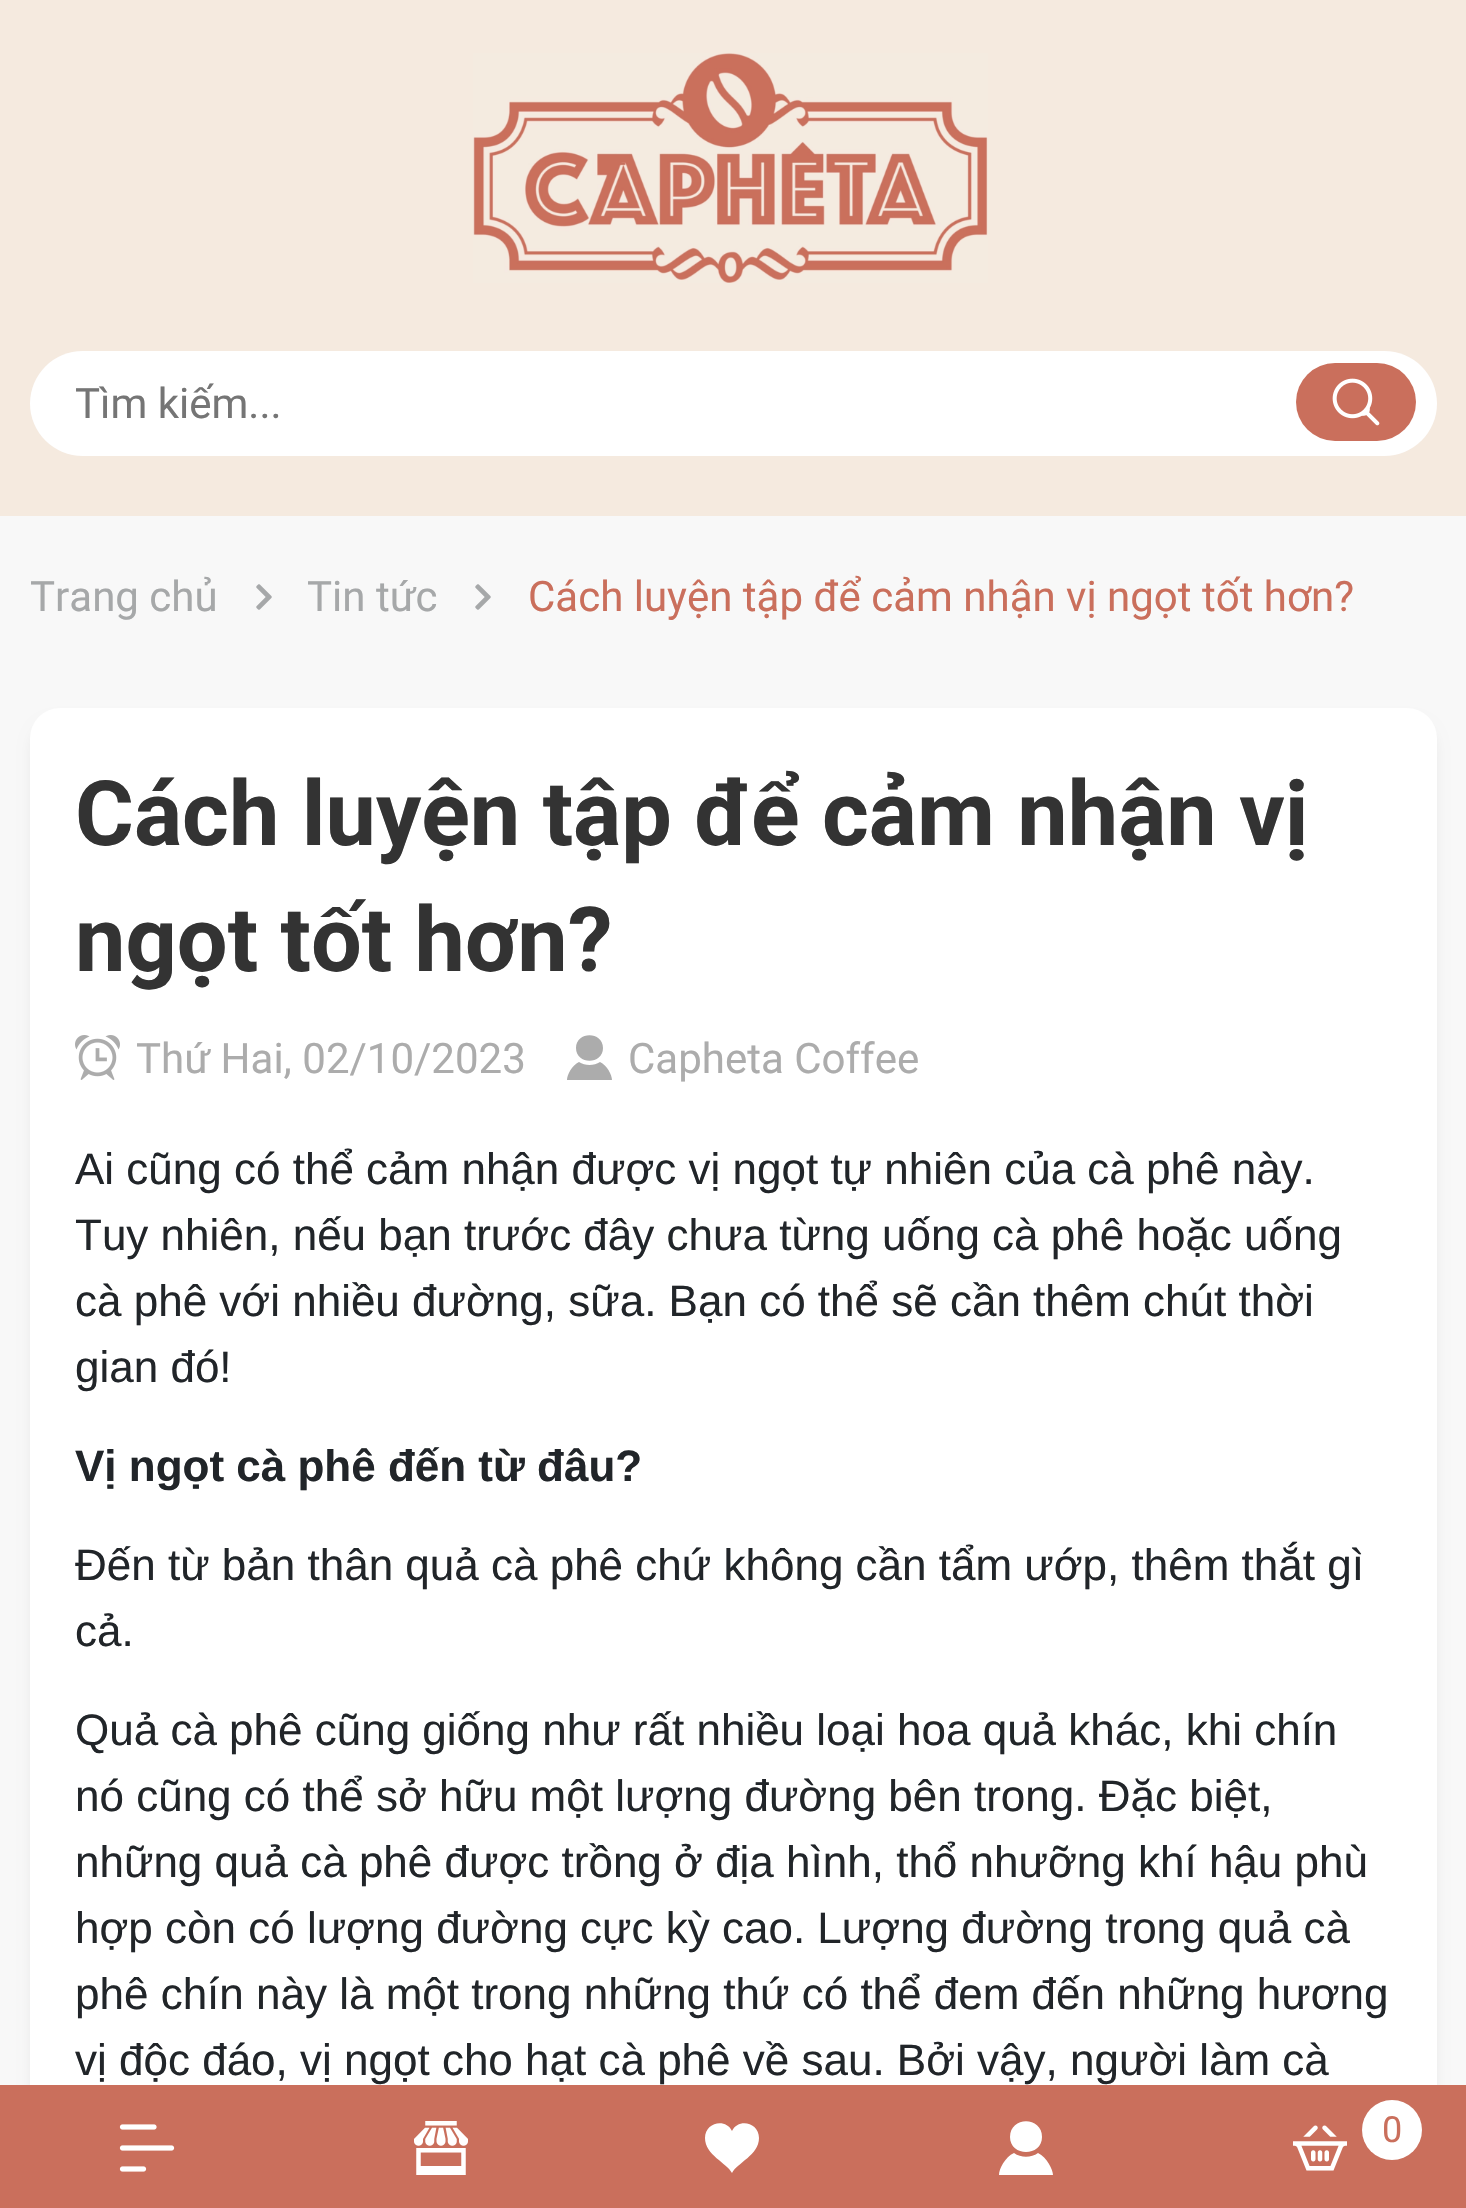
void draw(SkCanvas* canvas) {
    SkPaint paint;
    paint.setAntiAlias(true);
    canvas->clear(0xFFF8F8F8);
    paint.setColor(0xFFF5EADF);
    canvas->drawRect(SkRect::MakeXYWH(0, 0, 1466, 516), paint);
    paint.setColor(0xFFFFFFFF);
    canvas->drawRoundRect(SkRect::MakeXYWH(30, 351, 1407, 105), 52.5f, 52.5f, paint);
    SkFont font1(fontMgr->matchFamilyStyle("Roboto", SkFontStyle::Normal()), 42);
    font1.setSubpixel(true);
    paint.setColor(0xFF757575);
    canvas->drawString("Tìm kiếm...", 75, 418, font1, paint);
    paint.setColor(0xFFCA6F5C);
    canvas->drawRoundRect(SkRect::MakeXYWH(1296, 363, 120, 78), 39, 39, paint);
    canvas->drawImageRect(SkImages::DeferredFromEncodedData(SkData::MakeFromFileName("img1.png")), SkRect::MakeXYWH(1332, 378, 48, 48), SkSamplingOptions());
    canvas->drawImageRect(SkImages::DeferredFromEncodedData(SkData::MakeFromFileName("img2.png")), SkRect::MakeXYWH(473, 53, 515, 230), SkSamplingOptions());
    paint.setColor(0x0D000000);
    paint.setMaskFilter(SkMaskFilter::MakeBlur(kNormal_SkBlurStyle, 6));
    canvas->drawRoundRect(SkRect::MakeXYWH(30, 720, 1407, 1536), 30, 30, paint);
    paint.setMaskFilter(nullptr);
    paint.setColor(0xFFFFFFFF);
    canvas->drawRoundRect(SkRect::MakeXYWH(30, 708, 1407, 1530), 30, 30, paint);
    paint.setColor(0xFFCA6F5C);
    canvas->drawRect(SkRect::MakeXYWH(0, 2085, 1466, 123), paint);
    canvas->drawImageRect(SkImages::DeferredFromEncodedData(SkData::MakeFromFileName("img3.png")), SkRect::MakeXYWH(119, 2124, 56, 48), SkSamplingOptions());
    canvas->drawImageRect(SkImages::DeferredFromEncodedData(SkData::MakeFromFileName("img4.png")), SkRect::MakeXYWH(414, 2121, 54, 54), SkSamplingOptions());
    paint.setColor(0xFFFFFFFF);
    canvas->drawPath(SkPathBuilder().moveTo(732, 2131).cubicTo(726, 2118, 705, 2122, 705, 2138).cubicTo(705, 2155, 727, 2163, 732, 2173).cubicTo(737, 2163, 759, 2155, 759, 2138).cubicTo(759, 2122, 738, 2118, 732, 2131).close().detach(), paint);
    canvas->drawPath(SkPathBuilder().moveTo(1042, 2137).cubicTo(1042, 2157, 1010, 2157, 1010, 2137).cubicTo(1010, 2116, 1042, 2116, 1042, 2137).close().moveTo(1038, 2153).cubicTo(1031, 2158, 1021, 2158, 1014, 2153).cubicTo(1005, 2157, 999, 2169, 999, 2175).lineTo(1053, 2175).cubicTo(1053, 2170, 1047, 2157, 1038, 2153).close().detach(), paint);
    canvas->drawImageRect(SkImages::DeferredFromEncodedData(SkData::MakeFromFileName("img5.png")), SkRect::MakeXYWH(1293, 2125, 54, 46), SkSamplingOptions());
    canvas->drawCircle(1392, 2130, 30, paint);
    SkFont font2(fontMgr->matchFamilyStyle("Roboto", SkFontStyle::Normal()), 36);
    font2.setSubpixel(true);
    paint.setColor(0xFFCA6F5C);
    canvas->drawString("0", 1382, 2142, font2, paint);
    paint.setColor(0xFFA6A8A9);
    canvas->drawString("Trang chủ", 30, 611, font1, paint);
    canvas->drawImageRect(SkImages::DeferredFromEncodedData(SkData::MakeFromFileName("img6.png")), SkRect::MakeXYWH(256, 584, 16, 26), SkSamplingOptions());
    canvas->drawString("Tin tức", 307, 611, font1, paint);
    canvas->drawImageRect(SkImages::DeferredFromEncodedData(SkData::MakeFromFileName("img6.png")), SkRect::MakeXYWH(475, 584, 16, 26), SkSamplingOptions());
    paint.setColor(0xFFCA6F5C);
    canvas->drawString("Cách luyện tập để cảm nhận vị ngọt tốt hơn?", 528, 611, font1, paint);
    SkFont font3(fontMgr->matchFamilyStyle("Roboto", SkFontStyle::Bold()), 90);
    font3.setSubpixel(true);
    paint.setColor(0xFF333333);
    canvas->drawString("Cách luyện tập để cảm nhận vị", 75, 845, font3, paint);
    canvas->drawString("ngọt tốt hơn?", 75, 971, font3, paint);
    canvas->drawImageRect(SkImages::DeferredFromEncodedData(SkData::MakeFromFileName("img7.png")), SkRect::MakeXYWH(75, 1035, 45, 45), SkSamplingOptions());
    paint.setColor(0xFFACACAC);
    canvas->drawString("Thứ Hai, 02/10/2023", 136, 1073, font1, paint);
    canvas->drawString("Capheta Coffee", 628, 1073, font1, paint);
    canvas->drawPath(SkPathBuilder().moveTo(603, 1048).cubicTo(603, 1065, 576, 1065, 576, 1048).cubicTo(576, 1031, 603, 1031, 603, 1048).close().moveTo(600, 1062).cubicTo(594, 1066, 585, 1066, 579, 1062).cubicTo(572, 1065, 567, 1075, 567, 1080).lineTo(612, 1080).cubicTo(612, 1075, 607, 1065, 600, 1062).close().detach(), paint);
    SkFont font4(fontMgr->matchFamilyStyle("Liberation Sans", SkFontStyle::Normal()), 44);
    font4.setSubpixel(true);
    paint.setColor(0xFF212529);
    canvas->drawString("Ai cũng có thể cảm nhận được vị ngọt tự nhiên của cà phê này.", 75, 1184, font4, paint);
    canvas->drawString("Tuy nhiên, nếu bạn trước đây chưa từng uống cà phê hoặc uống", 75, 1250, font4, paint);
    canvas->drawString("cà phê với nhiều đường, sữa. Bạn có thể sẽ cần thêm chút thời", 75, 1316, font4, paint);
    canvas->drawString("gian đó!", 75, 1382, font4, paint);
    SkFont font5(fontMgr->matchFamilyStyle("Liberation Sans", SkFontStyle::Bold()), 44);
    font5.setSubpixel(true);
    canvas->drawString("Vị ngọt cà phê đến từ đâu?", 75, 1481, font5, paint);
    canvas->drawString("Đến từ bản thân quả cà phê chứ không cần tẩm ướp, thêm thắt gì", 75, 1580, font4, paint);
    canvas->drawString("cả.", 75, 1646, font4, paint);
    canvas->drawString("Quả cà phê cũng giống như rất nhiều loại hoa quả khác, khi chín", 75, 1745, font4, paint);
    canvas->drawString("nó cũng có thể sở hữu một lượng đường bên trong. Đặc biệt,", 75, 1811, font4, paint);
    canvas->drawString("những quả cà phê được trồng ở địa hình, thổ nhưỡng khí hậu phù", 75, 1877, font4, paint);
    canvas->drawString("hợp còn có lượng đường cực kỳ cao. Lượng đường trong quả cà", 75, 1943, font4, paint);
    canvas->drawString("phê chín này là một trong những thứ có thể đem đến những hương", 75, 2009, font4, paint);
    canvas->drawString("vị độc đáo, vị ngọt cho hạt cà phê về sau. Bởi vậy, người làm cà", 75, 2075, font4, paint);
}
